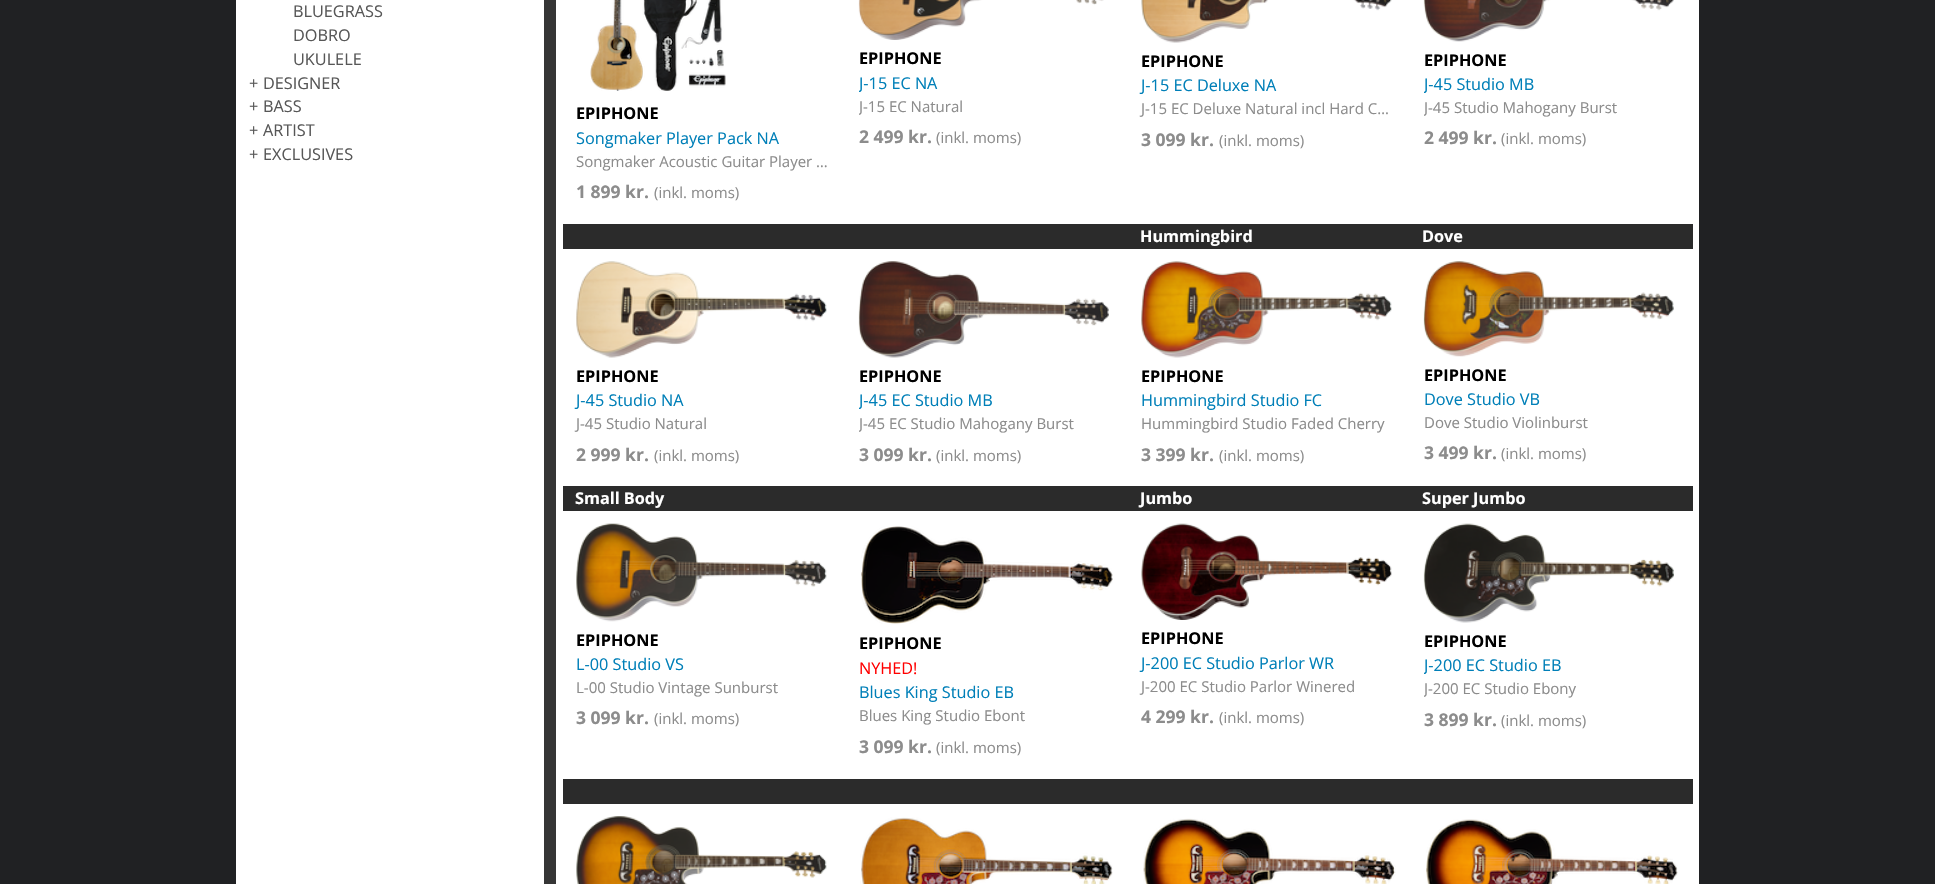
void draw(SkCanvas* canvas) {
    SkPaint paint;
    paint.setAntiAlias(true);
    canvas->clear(0xFF202123);
    paint.setColor(0xFFFFFFFF);
    canvas->drawRect(SkRect::MakeXYWH(236, 0, 1463, 884), paint);
    SkFont font1(fontMgr->matchFamilyStyle("Open Sans", SkFontStyle::Normal()), 16.25f);
    font1.setSubpixel(true);
    paint.setColor(0xFF575757);
    canvas->drawString("BLUEGRASS", 293, 17, font1, paint);
    canvas->drawString("DOBRO", 293, 41, font1, paint);
    canvas->drawString("UKULELE", 293, 65, font1, paint);
    canvas->drawString("+", 249, 89, font1, paint);
    canvas->drawString("DESIGNER", 263, 89, font1, paint);
    canvas->drawString("+", 249, 112, font1, paint);
    canvas->drawString("BASS", 263, 112, font1, paint);
    canvas->drawString("+", 249, 136, font1, paint);
    canvas->drawString("ARTIST", 263, 136, font1, paint);
    canvas->drawString("+", 249, 160, font1, paint);
    canvas->drawString("EXCLUSIVES", 263, 160, font1, paint);
    paint.setColor(0xFF353535);
    canvas->drawRect(SkRect::MakeXYWH(544, 0, 12, 884), paint);
    canvas->drawImageRect(SkImages::DeferredFromEncodedData(SkData::MakeFromFileName("img1.png")), SkRect::MakeXYWH(590, 0, 136, 91), SkSamplingOptions());
    SkFont font2(fontMgr->matchFamilyStyle("Open Sans", SkFontStyle::Bold()), 16.25f);
    font2.setSubpixel(true);
    paint.setColor(0xFF000000);
    canvas->drawString("EPIPHONE", 576, 119, font2, paint);
    paint.setColor(0xFF007FB8);
    canvas->drawString("Songmaker Player Pack NA", 576, 144, font1, paint);
    SkFont font3(fontMgr->matchFamilyStyle("Open Sans", SkFontStyle::Normal()), 15);
    font3.setSubpixel(true);
    paint.setColor(0xFF8C8C8C);
    canvas->drawString("Songmaker Acoustic Guitar Player …", 576, 167, font3, paint);
    SkFont font4(fontMgr->matchFamilyStyle("Open Sans", SkFontStyle::Bold()), 17.5f);
    font4.setSubpixel(true);
    canvas->drawString("1 899 kr.", 576, 198, font4, paint);
    canvas->drawString("(inkl. moms)", 654, 198, font3, paint);
    canvas->drawImageRect(SkImages::DeferredFromEncodedData(SkData::MakeFromFileName("img2.png")), SkRect::MakeXYWH(858, 0, 246, 40), SkSamplingOptions());
    paint.setColor(0xFF000000);
    canvas->drawString("EPIPHONE", 859, 64, font2, paint);
    canvas->save();
    canvas->clipRect(SkRect::MakeXYWH(859, 0, 255, 224));
    paint.setColor(0xFF007FB8);
    canvas->drawString("J-15 EC NA", 859, 89, font1, paint);
    canvas->restore();
    canvas->save();
    canvas->clipRect(SkRect::MakeXYWH(859, 96, 255, 22));
    paint.setColor(0xFF8C8C8C);
    canvas->drawString("J-15 EC Natural", 859, 112, font3, paint);
    canvas->restore();
    canvas->drawString("2 499 kr.", 859, 143, font4, paint);
    canvas->drawString("(inkl. moms)", 936, 143, font3, paint);
    canvas->drawImageRect(SkImages::DeferredFromEncodedData(SkData::MakeFromFileName("img3.png")), SkRect::MakeXYWH(1141, 0, 251, 43), SkSamplingOptions());
    paint.setColor(0xFF000000);
    canvas->drawString("EPIPHONE", 1141, 67, font2, paint);
    paint.setColor(0xFF007FB8);
    canvas->drawString("J-15 EC Deluxe NA", 1141, 91, font1, paint);
    paint.setColor(0xFF8C8C8C);
    canvas->drawString("J-15 EC Deluxe Natural incl Hard C…", 1141, 114, font3, paint);
    canvas->drawString("3 099 kr.", 1141, 146, font4, paint);
    canvas->drawString("(inkl. moms)", 1219, 146, font3, paint);
    canvas->drawImageRect(SkImages::DeferredFromEncodedData(SkData::MakeFromFileName("img4.png")), SkRect::MakeXYWH(1423, 0, 251, 42), SkSamplingOptions());
    paint.setColor(0xFF000000);
    canvas->drawString("EPIPHONE", 1424, 66, font2, paint);
    canvas->save();
    canvas->clipRect(SkRect::MakeXYWH(1424, 0, 255, 224));
    paint.setColor(0xFF007FB8);
    canvas->drawString("J-45 Studio MB", 1424, 90, font1, paint);
    canvas->restore();
    canvas->save();
    canvas->clipRect(SkRect::MakeXYWH(1424, 98, 255, 21));
    paint.setColor(0xFF8C8C8C);
    canvas->drawString("J-45 Studio Mahogany Burst", 1424, 113, font3, paint);
    canvas->restore();
    canvas->drawString("2 499 kr.", 1424, 144, font4, paint);
    canvas->drawString("(inkl. moms)", 1501, 144, font3, paint);
    paint.setColor(0xFF2B2B2B);
    canvas->drawRect(SkRect::MakeXYWH(563, 224, 1130, 25), paint);
    canvas->drawImageRect(SkImages::DeferredFromEncodedData(SkData::MakeFromFileName("img5.png")), SkRect::MakeXYWH(576, 261, 251, 97), SkSamplingOptions());
    paint.setColor(0xFF000000);
    canvas->drawString("EPIPHONE", 576, 382, font2, paint);
    paint.setColor(0xFF007FB8);
    canvas->drawString("J-45 Studio NA", 576, 406, font1, paint);
    paint.setColor(0xFF8C8C8C);
    canvas->drawString("J-45 Studio Natural", 576, 429, font3, paint);
    canvas->drawString("2 999 kr.", 576, 461, font4, paint);
    canvas->drawString("(inkl. moms)", 654, 461, font3, paint);
    canvas->drawImageRect(SkImages::DeferredFromEncodedData(SkData::MakeFromFileName("img6.png")), SkRect::MakeXYWH(858, 261, 251, 97), SkSamplingOptions());
    paint.setColor(0xFF000000);
    canvas->drawString("EPIPHONE", 859, 382, font2, paint);
    canvas->save();
    canvas->clipRect(SkRect::MakeXYWH(859, 249, 255, 237));
    paint.setColor(0xFF007FB8);
    canvas->drawString("J-45 EC Studio MB", 859, 406, font1, paint);
    canvas->restore();
    canvas->save();
    canvas->clipRect(SkRect::MakeXYWH(859, 414, 255, 21));
    paint.setColor(0xFF8C8C8C);
    canvas->drawString("J-45 EC Studio Mahogany Burst", 859, 429, font3, paint);
    canvas->restore();
    canvas->drawString("3 099 kr.", 859, 461, font4, paint);
    canvas->drawString("(inkl. moms)", 936, 461, font3, paint);
    paint.setColor(0xFFFFFFFF);
    canvas->drawString("Hummingbird", 1140, 242, font2, paint);
    canvas->drawImageRect(SkImages::DeferredFromEncodedData(SkData::MakeFromFileName("img7.png")), SkRect::MakeXYWH(1141, 261, 251, 97), SkSamplingOptions());
    paint.setColor(0xFF000000);
    canvas->drawString("EPIPHONE", 1141, 382, font2, paint);
    paint.setColor(0xFF007FB8);
    canvas->drawString("Hummingbird Studio FC", 1141, 406, font1, paint);
    paint.setColor(0xFF8C8C8C);
    canvas->drawString("Hummingbird Studio Faded Cherry", 1141, 429, font3, paint);
    canvas->drawString("3 399 kr.", 1141, 461, font4, paint);
    canvas->drawString("(inkl. moms)", 1219, 461, font3, paint);
    paint.setColor(0xFFFFFFFF);
    canvas->drawString("Dove", 1422, 242, font2, paint);
    canvas->drawImageRect(SkImages::DeferredFromEncodedData(SkData::MakeFromFileName("img8.png")), SkRect::MakeXYWH(1423, 261, 251, 96), SkSamplingOptions());
    paint.setColor(0xFF000000);
    canvas->drawString("EPIPHONE", 1424, 381, font2, paint);
    paint.setColor(0xFF007FB8);
    canvas->drawString("Dove Studio VB", 1424, 405, font1, paint);
    paint.setColor(0xFF8C8C8C);
    canvas->drawString("Dove Studio Violinburst", 1424, 428, font3, paint);
    canvas->drawString("3 499 kr.", 1424, 459, font4, paint);
    canvas->drawString("(inkl. moms)", 1501, 459, font3, paint);
    paint.setColor(0xFF2B2B2B);
    canvas->drawRect(SkRect::MakeXYWH(563, 486, 1130, 25), paint);
    paint.setColor(0xFFFFFFFF);
    canvas->drawString("Small Body", 575, 504, font2, paint);
    canvas->drawImageRect(SkImages::DeferredFromEncodedData(SkData::MakeFromFileName("img9.png")), SkRect::MakeXYWH(576, 523, 251, 99), SkSamplingOptions());
    paint.setColor(0xFF000000);
    canvas->drawString("EPIPHONE", 576, 646, font2, paint);
    paint.setColor(0xFF007FB8);
    canvas->drawString("L-00 Studio VS", 576, 670, font1, paint);
    paint.setColor(0xFF8C8C8C);
    canvas->drawString("L-00 Studio Vintage Sunburst", 576, 693, font3, paint);
    canvas->drawString("3 099 kr.", 576, 724, font4, paint);
    canvas->drawString("(inkl. moms)", 654, 724, font3, paint);
    canvas->drawImageRect(SkImages::DeferredFromEncodedData(SkData::MakeFromFileName("img10.png")), SkRect::MakeXYWH(861, 526, 252, 98), SkSamplingOptions());
    paint.setColor(0xFF000000);
    canvas->drawString("EPIPHONE", 859, 649, font2, paint);
    paint.setColor(0xFFFF0000);
    canvas->drawString("NYHED!", 859, 674, font1, paint);
    paint.setColor(0xFF007FB8);
    canvas->drawString("Blues King Studio EB", 859, 698, font1, paint);
    paint.setColor(0xFF8C8C8C);
    canvas->drawString("Blues King Studio Ebont", 859, 721, font3, paint);
    canvas->drawString("3 099 kr.", 859, 753, font4, paint);
    canvas->drawString("(inkl. moms)", 936, 753, font3, paint);
    paint.setColor(0xFFFFFFFF);
    canvas->drawString("Jumbo", 1140, 504, font2, paint);
    canvas->drawImageRect(SkImages::DeferredFromEncodedData(SkData::MakeFromFileName("img11.png")), SkRect::MakeXYWH(1141, 523, 251, 97), SkSamplingOptions());
    paint.setColor(0xFF000000);
    canvas->drawString("EPIPHONE", 1141, 644, font2, paint);
    paint.setColor(0xFF007FB8);
    canvas->drawString("J-200 EC Studio Parlor WR", 1141, 669, font1, paint);
    paint.setColor(0xFF8C8C8C);
    canvas->drawString("J-200 EC Studio Parlor Winered", 1141, 692, font3, paint);
    canvas->drawString("4 299 kr.", 1141, 723, font4, paint);
    canvas->drawString("(inkl. moms)", 1219, 723, font3, paint);
    paint.setColor(0xFFFFFFFF);
    canvas->drawString("Super Jumbo", 1422, 504, font2, paint);
    canvas->drawImageRect(SkImages::DeferredFromEncodedData(SkData::MakeFromFileName("img12.png")), SkRect::MakeXYWH(1423, 523, 251, 100), SkSamplingOptions());
    paint.setColor(0xFF000000);
    canvas->drawString("EPIPHONE", 1424, 647, font2, paint);
    canvas->save();
    canvas->clipRect(SkRect::MakeXYWH(1424, 511, 255, 268));
    paint.setColor(0xFF007FB8);
    canvas->drawString("J-200 EC Studio EB", 1424, 671, font1, paint);
    canvas->restore();
    canvas->save();
    canvas->clipRect(SkRect::MakeXYWH(1424, 679, 255, 21));
    paint.setColor(0xFF8C8C8C);
    canvas->drawString("J-200 EC Studio Ebony", 1424, 694, font3, paint);
    canvas->restore();
    canvas->drawString("3 899 kr.", 1424, 726, font4, paint);
    canvas->drawString("(inkl. moms)", 1501, 726, font3, paint);
    paint.setColor(0xFF2B2B2B);
    canvas->drawRect(SkRect::MakeXYWH(563, 779, 1130, 25), paint);
    canvas->drawImageRect(SkImages::DeferredFromEncodedData(SkData::MakeFromFileName("img13.png")), SkRect::MakeXYWH(576, 816, 251, 68), SkSamplingOptions());
    canvas->drawImageRect(SkImages::DeferredFromEncodedData(SkData::MakeFromFileName("img14.png")), SkRect::MakeXYWH(860, 817, 253, 67), SkSamplingOptions());
    canvas->drawImageRect(SkImages::DeferredFromEncodedData(SkData::MakeFromFileName("img15.png")), SkRect::MakeXYWH(1143, 818, 253, 66), SkSamplingOptions());
    canvas->drawImageRect(SkImages::DeferredFromEncodedData(SkData::MakeFromFileName("img16.png")), SkRect::MakeXYWH(1426, 819, 252, 65), SkSamplingOptions());
}
